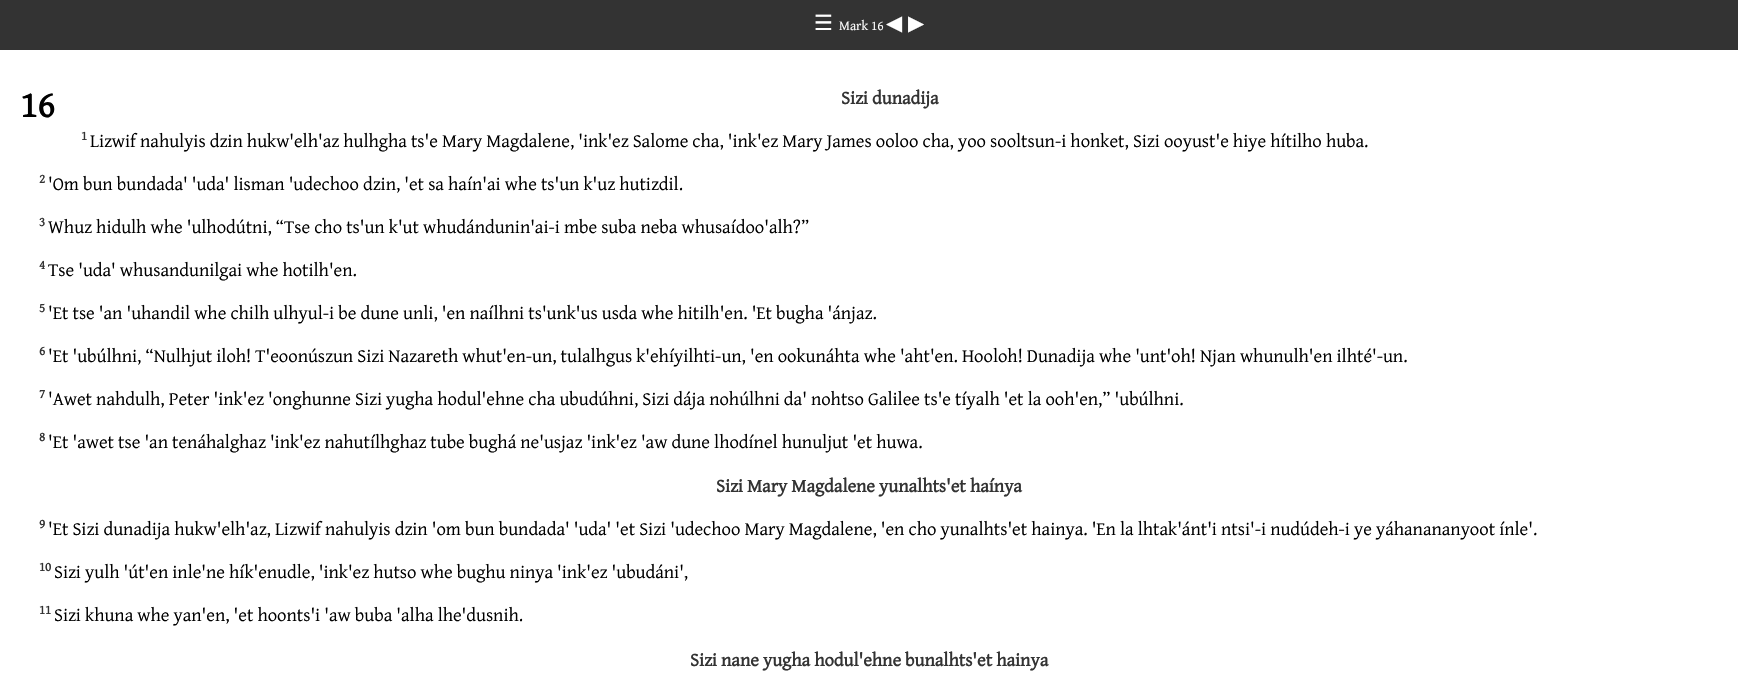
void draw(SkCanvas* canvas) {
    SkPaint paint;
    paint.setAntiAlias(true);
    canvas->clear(0xFFFFFFFF);
    paint.setColor(0xFF333333);
    canvas->drawRect(SkRect::MakeXYWH(0, 0, 1738, 50), paint);
    SkFont font1(fontMgr->matchFamilyStyle("DejaVu Sans", SkFontStyle::Normal()), 21);
    font1.setSubpixel(true);
    paint.setColor(0xFFFFFFFF);
    canvas->drawString("☰", 814, 30, font1, paint);
    SkFont font2(fontMgr->matchFamilyStyle("Gentium Plus", SkFontStyle::Normal()), 13.5f);
    font2.setSubpixel(true);
    canvas->drawString("Mark 16", 839, 30, font2, paint);
    canvas->drawString("◀", 886, 30, font1, paint);
    canvas->drawString("▶", 908, 30, font1, paint);
    SkFont font3(fontMgr->matchFamilyStyle("Gentium Plus", SkFontStyle::Bold()), 37);
    font3.setSubpixel(true);
    paint.setColor(0xFF000000);
    canvas->drawString("16", 20, 117, font3, paint);
    SkFont font4(fontMgr->matchFamilyStyle("Gentium Plus", SkFontStyle::Bold()), 18.67f);
    font4.setSubpixel(true);
    paint.setColor(0xFF333333);
    canvas->drawString("Sizi dunadija", 841, 104, font4, paint);
    SkFont font5(fontMgr->matchFamilyStyle("Gentium Plus", SkFontStyle::Bold()), 13);
    font5.setSubpixel(true);
    canvas->drawString("1", 81, 140, font5, paint);
    SkFont font6(fontMgr->matchFamilyStyle("Gentium Plus", SkFontStyle::Normal()), 18.67f);
    font6.setSubpixel(true);
    paint.setColor(0xFF000000);
    canvas->drawString("Lizwif nahulyis dzin hukw'elh'az hulhgha ts'e Mary Magdalene, 'ink'ez Salome cha, 'ink'ez Mary James ooloo cha, yoo sooltsun-i honket, Sizi ooyust'e hiye hítilho huba.", 90, 147, font6, paint);
    paint.setColor(0xFF333333);
    canvas->drawString("2", 39, 183, font5, paint);
    paint.setColor(0xFF000000);
    canvas->drawString("'Om bun bundada' 'uda' lisman 'udechoo dzin, 'et sa haín'ai whe ts'un k'uz hutizdil.", 48, 190, font6, paint);
    paint.setColor(0xFF333333);
    canvas->drawString("3", 39, 226, font5, paint);
    paint.setColor(0xFF000000);
    canvas->drawString("Whuz hidulh whe 'ulhodútni, “Tse cho ts'un k'ut whudándunin'ai-i mbe suba neba whusaídoo'alh?”", 48, 233, font6, paint);
    paint.setColor(0xFF333333);
    canvas->drawString("4", 39, 269, font5, paint);
    paint.setColor(0xFF000000);
    canvas->drawString("Tse 'uda' whusandunilgai whe hotilh'en.", 48, 276, font6, paint);
    paint.setColor(0xFF333333);
    canvas->drawString("5", 39, 312, font5, paint);
    paint.setColor(0xFF000000);
    canvas->drawString("'Et tse 'an 'uhandil whe chilh ulhyul-i be dune unli, 'en naílhni ts'unk'us usda whe hitilh'en. 'Et bugha 'ánjaz.", 48, 319, font6, paint);
    paint.setColor(0xFF333333);
    canvas->drawString("6", 39, 355, font5, paint);
    paint.setColor(0xFF000000);
    canvas->drawString("'Et 'ubúlhni, “Nulhjut iloh! T'eoonúszun Sizi Nazareth whut'en-un, tulalhgus k'ehíyilhti-un, 'en ookunáhta whe 'aht'en. Hooloh! Dunadija whe 'unt'oh! Njan whunulh'en ilhté'-un.", 48, 362, font6, paint);
    paint.setColor(0xFF333333);
    canvas->drawString("7", 39, 398, font5, paint);
    paint.setColor(0xFF000000);
    canvas->drawString("'Awet nahdulh, Peter 'ink'ez 'onghunne Sizi yugha hodul'ehne cha ubudúhni, Sizi dája nohúlhni da' nohtso Galilee ts'e tíyalh 'et la ooh'en,” 'ubúlhni.", 48, 405, font6, paint);
    paint.setColor(0xFF333333);
    canvas->drawString("8", 39, 441, font5, paint);
    paint.setColor(0xFF000000);
    canvas->drawString("'Et 'awet tse 'an tenáhalghaz 'ink'ez nahutílhghaz tube bughá ne'usjaz 'ink'ez 'aw dune lhodínel hunuljut 'et huwa.", 48, 448, font6, paint);
    paint.setColor(0xFF333333);
    canvas->drawString("Sizi Mary Magdalene yunalhts'et haínya", 716, 492, font4, paint);
    canvas->drawString("9", 39, 528, font5, paint);
    paint.setColor(0xFF000000);
    canvas->drawString("'Et Sizi dunadija hukw'elh'az, Lizwif nahulyis dzin 'om bun bundada' 'uda' 'et Sizi 'udechoo Mary Magdalene, 'en cho yunalhts'et hainya. 'En la lhtak'ánt'i ntsi'-i nudúdeh-i ye yáhanananyoot ínle'.", 48, 535, font6, paint);
    paint.setColor(0xFF333333);
    canvas->drawString("10", 39, 571, font5, paint);
    paint.setColor(0xFF000000);
    canvas->drawString("Sizi yulh 'út'en inle'ne hík'enudle, 'ink'ez hutso whe bughu ninya 'ink'ez 'ubudáni',", 54, 578, font6, paint);
    paint.setColor(0xFF333333);
    canvas->drawString("11", 39, 614, font5, paint);
    paint.setColor(0xFF000000);
    canvas->drawString("Sizi khuna whe yan'en, 'et hoonts'i 'aw buba 'alha lhe'dusnih.", 54, 621, font6, paint);
    paint.setColor(0xFF333333);
    canvas->drawString("Sizi nane yugha hodul'ehne bunalhts'et hainya", 690, 666, font4, paint);
}
